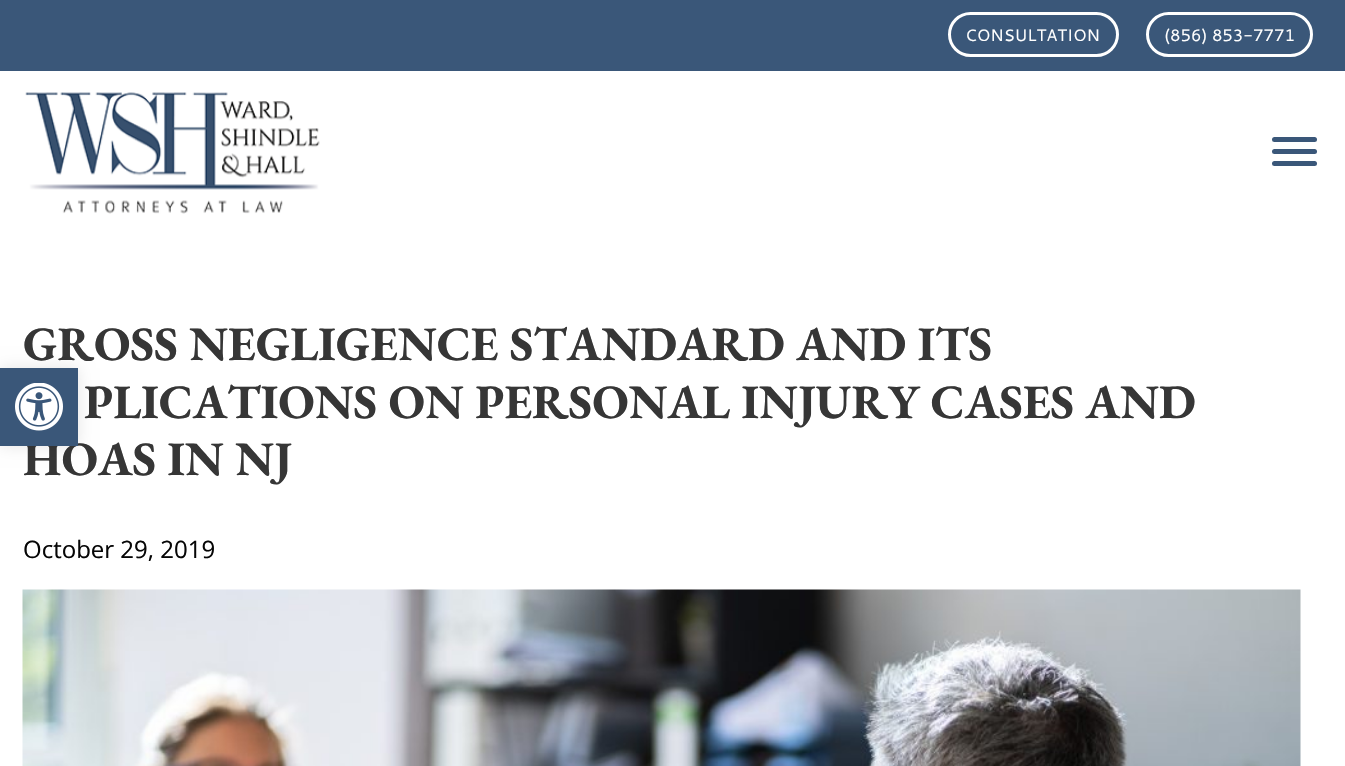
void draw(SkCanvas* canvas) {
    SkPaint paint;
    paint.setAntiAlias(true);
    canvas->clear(0xFFFFFFFF);
    paint.setColor(0xFF3A5779);
    canvas->drawRect(SkRect::MakeXYWH(0, 0, 1345, 71), paint);
    paint.setStyle(SkPaint::kStroke_Style);
    paint.setStrokeWidth(3);
    paint.setColor(0xFFFFFFFF);
    canvas->drawRoundRect(SkRect::MakeXYWH(949.5f, 13.5f, 168, 42), 21, 21, paint);
    SkFont font1(fontMgr->matchFamilyStyle("Cantarell", SkFontStyle::Normal()), 16.5f);
    font1.setSubpixel(true);
    paint.setStyle(SkPaint::kFill_Style);
    canvas->drawString("CONSULTATION", 965, 41, font1, paint);
    paint.setStyle(SkPaint::kStroke_Style);
    canvas->drawRoundRect(SkRect::MakeXYWH(1147.5f, 13.5f, 164, 42), 21, 21, paint);
    paint.setStyle(SkPaint::kFill_Style);
    canvas->drawString("(856) 853-7771", 1164, 41, font1, paint);
    canvas->drawImageRect(SkImages::DeferredFromEncodedData(SkData::MakeFromFileName("img1.png")), SkRect::MakeXYWH(25, 92, 295, 122), SkSamplingOptions());
    SkFont font2(fontMgr->matchFamilyStyle("EB Garamond", SkFontStyle::Bold()), 48);
    font2.setSubpixel(true);
    paint.setColor(0xFF363636);
    canvas->drawString("GROSS NEGLIGENCE STANDARD AND ITS", 23, 360, font2, paint);
    canvas->drawString("PLICATIONS ON PERSONAL INJURY CASES AND", 84, 418, font2, paint);
    canvas->drawString("HOAS IN NJ", 23, 475, font2, paint);
    SkFont font3(fontMgr->matchFamilyStyle("Open Sans", SkFontStyle::Normal()), 24);
    font3.setSubpixel(true);
    paint.setColor(0xFF060606);
    canvas->drawString("October 29, 2019", 23, 558, font3, paint);
    canvas->drawImageRect(SkImages::DeferredFromEncodedData(SkData::MakeFromFileName("img2.png")), SkRect::MakeXYWH(22, 589, 1279, 177), SkSamplingOptions());
    paint.setColor(0xFF3A5779);
    canvas->drawRoundRect(SkRect::MakeXYWH(1272, 149, 45, 5), 2.5f, 2.5f, paint);
    canvas->drawRoundRect(SkRect::MakeXYWH(1272, 137, 45, 5), 2.5f, 2.5f, paint);
    canvas->drawRoundRect(SkRect::MakeXYWH(1272, 161, 45, 5), 2.5f, 2.5f, paint);
    paint.setColor(0x1A000000);
    paint.setMaskFilter(SkMaskFilter::MakeBlur(kNormal_SkBlurStyle, 7.5f));
    canvas->drawRect(SkRect::MakeXYWH(0, 368, 78, 78), paint);
    paint.setMaskFilter(nullptr);
    paint.setColor(0xFF3A5779);
    canvas->drawRect(SkRect::MakeXYWH(0, 368, 78, 78), paint);
    canvas->drawImageRect(SkImages::DeferredFromEncodedData(SkData::MakeFromFileName("img3.png")), SkRect::MakeXYWH(15, 383, 48, 48), SkSamplingOptions());
}
